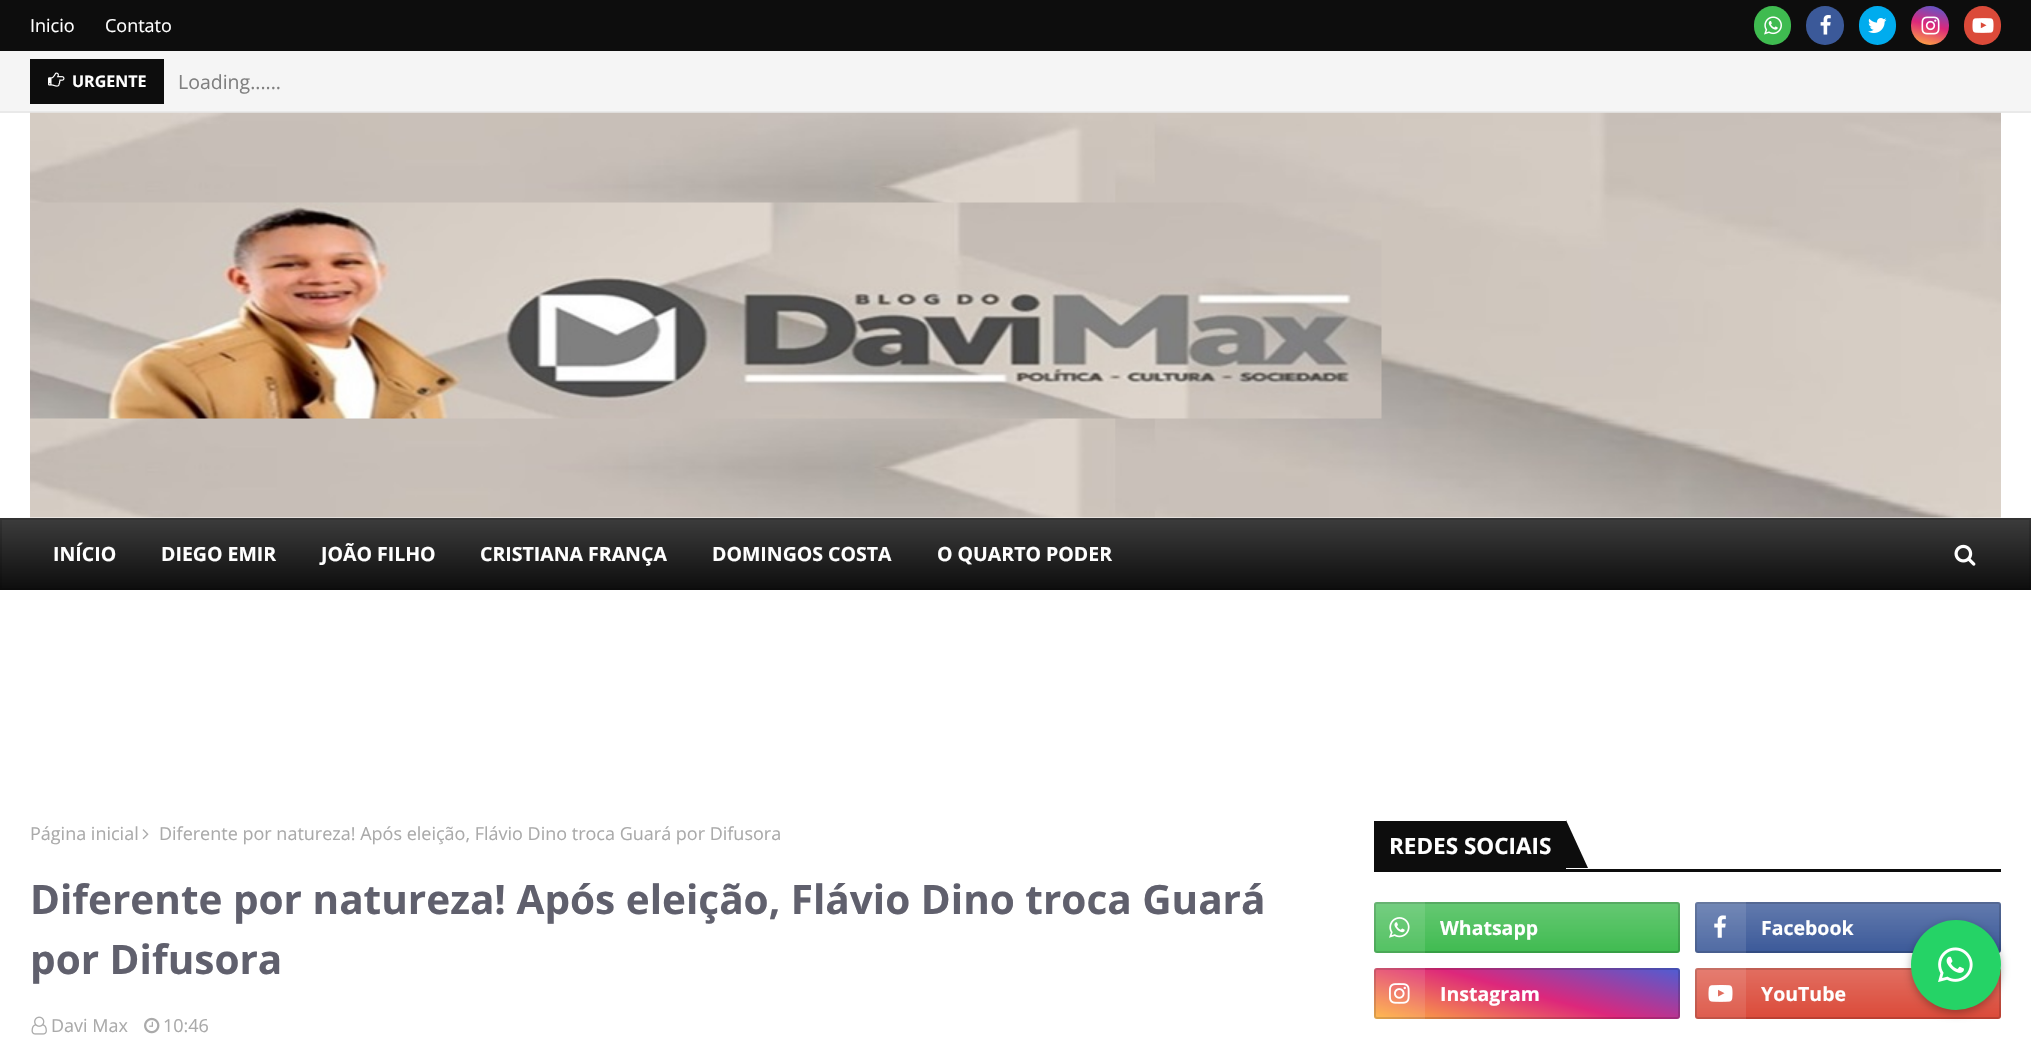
void draw(SkCanvas* canvas) {
    SkPaint paint;
    paint.setAntiAlias(true);
    canvas->clear(0xFFFFFFFF);
    paint.setColor(0xFF0D0D0D);
    canvas->drawRect(SkRect::MakeXYWH(0, 0, 2031, 51), paint);
    SkFont font1(fontMgr->matchFamilyStyle("Open Sans", SkFontStyle::Normal()), 18);
    font1.setSubpixel(true);
    paint.setColor(0xFFFFFFFF);
    canvas->drawString("Inicio", 30, 32, font1, paint);
    canvas->drawString("Contato", 105, 32, font1, paint);
    paint.setColor(0xFF3FBB50);
    canvas->drawRoundRect(SkRect::MakeXYWH(1754, 6, 37, 39), 18.5f, 18.5f, paint);
    canvas->drawImageRect(SkImages::DeferredFromEncodedData(SkData::MakeFromFileName("img1.png")), SkRect::MakeXYWH(1764, 16, 18, 19), SkSamplingOptions());
    paint.setColor(0xFF3B5999);
    canvas->drawRoundRect(SkRect::MakeXYWH(1806, 6, 38, 39), 19, 19, paint);
    canvas->drawImageRect(SkImages::DeferredFromEncodedData(SkData::MakeFromFileName("img2.png")), SkRect::MakeXYWH(1820, 15, 11, 20), SkSamplingOptions());
    paint.setColor(0xFF00ACEE);
    canvas->drawRoundRect(SkRect::MakeXYWH(1859, 6, 37, 39), 18.5f, 18.5f, paint);
    canvas->drawImageRect(SkImages::DeferredFromEncodedData(SkData::MakeFromFileName("img3.png")), SkRect::MakeXYWH(1868, 18, 19, 15), SkSamplingOptions());
    {
        const SkColor colors[] = {0xFFFFB13D, 0xFFDD277B, 0xFF4D5ED4};
        const float stops[] = {0, 0.5f, 1};
        const SkPoint ends[] = {{1924, 48}, {1936, 2.6f}};
        paint.setShader(SkGradientShader::MakeLinear(ends, colors, stops, 3, SkTileMode::kClamp));
        paint.setAlpha(255);
    }
    canvas->drawRoundRect(SkRect::MakeXYWH(1911, 6, 38, 39), 19, 19, paint);
    canvas->drawImageRect(SkImages::DeferredFromEncodedData(SkData::MakeFromFileName("img4.png")), SkRect::MakeXYWH(1921, 16, 19, 19), SkSamplingOptions());
    paint.setShader(nullptr);
    paint.setColor(0xFFDB4A39);
    canvas->drawRoundRect(SkRect::MakeXYWH(1964, 6, 37, 39), 18.5f, 18.5f, paint);
    canvas->drawImageRect(SkImages::DeferredFromEncodedData(SkData::MakeFromFileName("img5.png")), SkRect::MakeXYWH(1972, 18, 22, 15), SkSamplingOptions());
    paint.setColor(0xFFF5F5F5);
    canvas->drawRect(SkRect::MakeXYWH(0, 51, 2031, 60), paint);
    paint.setColor(0xFFE9E9E9);
    canvas->drawRect(SkRect::MakeXYWH(0, 111, 2031, 2), paint);
    paint.setColor(0xFF0D0D0D);
    canvas->drawRect(SkRect::MakeXYWH(30, 59, 134, 45), paint);
    canvas->drawImageRect(SkImages::DeferredFromEncodedData(SkData::MakeFromFileName("img6.png")), SkRect::MakeXYWH(48, 72, 17, 15), SkSamplingOptions());
    SkFont font2(fontMgr->matchFamilyStyle("Open Sans", SkFontStyle::Bold()), 16);
    font2.setSubpixel(true);
    paint.setColor(0xFFFFFFFF);
    canvas->drawString("URGENTE", 72, 87, font2, paint);
    SkFont font3(fontMgr->matchFamilyStyle("Open Sans", SkFontStyle::Normal()), 19.5f);
    font3.setSubpixel(true);
    paint.setColor(0xFF808080);
    canvas->drawString("Loading......", 178, 89, font3, paint);
    canvas->drawImageRect(SkImages::DeferredFromEncodedData(SkData::MakeFromFileName("img7.png")), SkRect::MakeXYWH(30, 112, 1971, 406), SkSamplingOptions());
    canvas->drawImageRect(SkImages::DeferredFromEncodedData(SkData::MakeFromFileName("img8.png")), SkRect::MakeXYWH(30, 202, 1352, 217), SkSamplingOptions());
    {
        const SkColor colors[] = {0xFF3D3D3D, 0xFF0D0D0D};
        const float stops[] = {0, 1};
        const SkPoint ends[] = {{1016, 517}, {1016, 590}};
        paint.setShader(SkGradientShader::MakeLinear(ends, colors, stops, 2, SkTileMode::kClamp));
        paint.setAlpha(255);
    }
    canvas->drawRect(SkRect::MakeXYWH(0, 518, 2031, 72), paint);
    paint.setStyle(SkPaint::kStroke_Style);
    paint.setStrokeWidth(2);
    paint.setShader(nullptr);
    paint.setColor(0x26000000);
    canvas->drawRect(SkRect::MakeXYWH(1, 519, 2029, 70), paint);
    SkFont font4(fontMgr->matchFamilyStyle("Open Sans", SkFontStyle::Bold()), 19.5f);
    font4.setSubpixel(true);
    paint.setStyle(SkPaint::kFill_Style);
    paint.setColor(0xFFFFFFFF);
    canvas->drawString("INÍCIO", 53, 561, font4, paint);
    canvas->drawString("DIEGO EMIR", 161, 561, font4, paint);
    canvas->drawString("JOÃO FILHO", 321, 561, font4, paint);
    canvas->drawString("CRISTIANA FRANÇA", 480, 561, font4, paint);
    canvas->drawString("DOMINGOS COSTA", 712, 561, font4, paint);
    canvas->drawString("O QUARTO PODER", 937, 561, font4, paint);
    canvas->drawImageRect(SkImages::DeferredFromEncodedData(SkData::MakeFromFileName("img9.png")), SkRect::MakeXYWH(1954, 544, 22, 22), SkSamplingOptions());
    paint.setColor(0xFFAAAAAA);
    canvas->drawString("Página inicial", 30, 840, font1, paint);
    canvas->drawImageRect(SkImages::DeferredFromEncodedData(SkData::MakeFromFileName("img10.png")), SkRect::MakeXYWH(142, 829, 7, 11), SkSamplingOptions());
    canvas->drawString("Diferente por natureza! Após eleição, Flávio Dino troca Guará por Difusora", 159, 840, font1, paint);
    SkFont font5(fontMgr->matchFamilyStyle("Open Sans", SkFontStyle::Bold()), 40.5f);
    font5.setSubpixel(true);
    paint.setColor(0xFF60606D);
    canvas->drawString("Diferente por natureza! Após eleição, Flávio Dino troca Guará", 30, 914, font5, paint);
    canvas->drawString("por Difusora", 30, 974, font5, paint);
    canvas->drawImageRect(SkImages::DeferredFromEncodedData(SkData::MakeFromFileName("img11.png")), SkRect::MakeXYWH(31, 1016, 16, 19), SkSamplingOptions());
    paint.setColor(0xFFAAAAAA);
    canvas->drawString("Davi Max", 51, 1032, font1, paint);
    canvas->drawImageRect(SkImages::DeferredFromEncodedData(SkData::MakeFromFileName("img12.png")), SkRect::MakeXYWH(144, 1017, 16, 17), SkSamplingOptions());
    canvas->drawString("10:46", 163, 1032, font1, paint);
    paint.setColor(0xFF0D0D0D);
    canvas->drawRect(SkRect::MakeXYWH(1374, 869, 627, 3), paint);
    canvas->drawRect(SkRect::MakeXYWH(1374, 821, 192, 48), paint);
    SkFont font6(fontMgr->matchFamilyStyle("Open Sans", SkFontStyle::Bold()), 22.5f);
    font6.setSubpixel(true);
    paint.setColor(0xFFFFFFFF);
    canvas->drawString("REDES SOCIAIS", 1389, 854, font6, paint);
    paint.setColor(0xFF0D0D0D);
    canvas->drawPath(SkPathBuilder().moveTo(1566, 868).lineTo(1566, 820).lineTo(1588, 868).close().detach(), paint);
    paint.setColor(0xFF3FBB50);
    canvas->drawRoundRect(SkRect::MakeXYWH(1374, 902, 306, 51), 3, 3, paint);
    {
        const SkColor colors[] = {0x33FFFFFF, 0x00FFFFFF};
        const float stops[] = {0, 1};
        const SkPoint ends[] = {{1527, 902}, {1527, 953}};
        paint.setShader(SkGradientShader::MakeLinear(ends, colors, stops, 2, SkTileMode::kClamp));
        paint.setAlpha(255);
    }
    canvas->drawRoundRect(SkRect::MakeXYWH(1374, 902, 306, 51), 3, 3, paint);
    paint.setStyle(SkPaint::kStroke_Style);
    paint.setShader(nullptr);
    paint.setColor(0x26000000);
    canvas->drawRoundRect(SkRect::MakeXYWH(1375, 903, 304, 49), 2, 2, paint);
    paint.setStyle(SkPaint::kFill_Style);
    paint.setColor(0x1AFFFFFF);
    canvas->drawRect(SkRect::MakeXYWH(1374, 902, 51, 51), paint);
    canvas->drawImageRect(SkImages::DeferredFromEncodedData(SkData::MakeFromFileName("img13.png")), SkRect::MakeXYWH(1389, 917, 21, 21), SkSamplingOptions());
    paint.setColor(0xFFFFFFFF);
    canvas->drawString("Whatsapp", 1440, 935, font4, paint);
    paint.setColor(0xFF3B5999);
    canvas->drawRoundRect(SkRect::MakeXYWH(1695, 902, 306, 51), 3, 3, paint);
    {
        const SkColor colors[] = {0x33FFFFFF, 0x00FFFFFF};
        const float stops[] = {0, 1};
        const SkPoint ends[] = {{1848, 902}, {1848, 953}};
        paint.setShader(SkGradientShader::MakeLinear(ends, colors, stops, 2, SkTileMode::kClamp));
        paint.setAlpha(255);
    }
    canvas->drawRoundRect(SkRect::MakeXYWH(1695, 902, 306, 51), 3, 3, paint);
    paint.setStyle(SkPaint::kStroke_Style);
    paint.setShader(nullptr);
    paint.setColor(0x26000000);
    canvas->drawRoundRect(SkRect::MakeXYWH(1696, 903, 304, 49), 2, 2, paint);
    paint.setStyle(SkPaint::kFill_Style);
    paint.setColor(0x1AFFFFFF);
    canvas->drawRect(SkRect::MakeXYWH(1695, 902, 51, 51), paint);
    canvas->drawImageRect(SkImages::DeferredFromEncodedData(SkData::MakeFromFileName("img14.png")), SkRect::MakeXYWH(1714, 915, 12, 23), SkSamplingOptions());
    paint.setColor(0xFFFFFFFF);
    canvas->drawString("Facebook", 1761, 935, font4, paint);
    {
        const SkColor colors[] = {0xFFFFB13D, 0xFFDD277B, 0xFF4D5ED4};
        const float stops[] = {0, 0.5f, 1};
        const SkPoint ends[] = {{1510, 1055}, {1544, 931}};
        paint.setShader(SkGradientShader::MakeLinear(ends, colors, stops, 3, SkTileMode::kClamp));
        paint.setAlpha(255);
    }
    canvas->drawRoundRect(SkRect::MakeXYWH(1374, 968, 306, 51), 3, 3, paint);
    paint.setStyle(SkPaint::kStroke_Style);
    paint.setShader(nullptr);
    paint.setColor(0x26000000);
    canvas->drawRoundRect(SkRect::MakeXYWH(1375, 969, 304, 49), 2, 2, paint);
    paint.setStyle(SkPaint::kFill_Style);
    paint.setColor(0x1AFFFFFF);
    canvas->drawRect(SkRect::MakeXYWH(1374, 968, 51, 51), paint);
    canvas->drawImageRect(SkImages::DeferredFromEncodedData(SkData::MakeFromFileName("img15.png")), SkRect::MakeXYWH(1389, 983, 21, 21), SkSamplingOptions());
    paint.setColor(0xFFFFFFFF);
    canvas->drawString("Instagram", 1440, 1001, font4, paint);
    paint.setColor(0xFFDB4A39);
    canvas->drawRoundRect(SkRect::MakeXYWH(1695, 968, 306, 51), 3, 3, paint);
    {
        const SkColor colors[] = {0x33FFFFFF, 0x00FFFFFF};
        const float stops[] = {0, 1};
        const SkPoint ends[] = {{1848, 968}, {1848, 1019}};
        paint.setShader(SkGradientShader::MakeLinear(ends, colors, stops, 2, SkTileMode::kClamp));
        paint.setAlpha(255);
    }
    canvas->drawRoundRect(SkRect::MakeXYWH(1695, 968, 306, 51), 3, 3, paint);
    paint.setStyle(SkPaint::kStroke_Style);
    paint.setShader(nullptr);
    paint.setColor(0x26000000);
    canvas->drawRoundRect(SkRect::MakeXYWH(1696, 969, 304, 49), 2, 2, paint);
    paint.setStyle(SkPaint::kFill_Style);
    paint.setColor(0x1AFFFFFF);
    canvas->drawRect(SkRect::MakeXYWH(1695, 968, 51, 51), paint);
    canvas->drawImageRect(SkImages::DeferredFromEncodedData(SkData::MakeFromFileName("img16.png")), SkRect::MakeXYWH(1708, 985, 25, 17), SkSamplingOptions());
    paint.setColor(0xFFFFFFFF);
    canvas->drawString("YouTube", 1761, 1001, font4, paint);
    paint.setColor(0x4D000000);
    paint.setMaskFilter(SkMaskFilter::MakeBlur(kNormal_SkBlurStyle, 4));
    canvas->drawRoundRect(SkRect::MakeXYWH(1911, 923, 90, 90), 45, 45, paint);
    paint.setMaskFilter(nullptr);
    paint.setColor(0xFF25D366);
    canvas->drawCircle(1956, 965, 45, paint);
    canvas->drawImageRect(SkImages::DeferredFromEncodedData(SkData::MakeFromFileName("img17.png")), SkRect::MakeXYWH(1938, 947, 35, 35), SkSamplingOptions());
}
